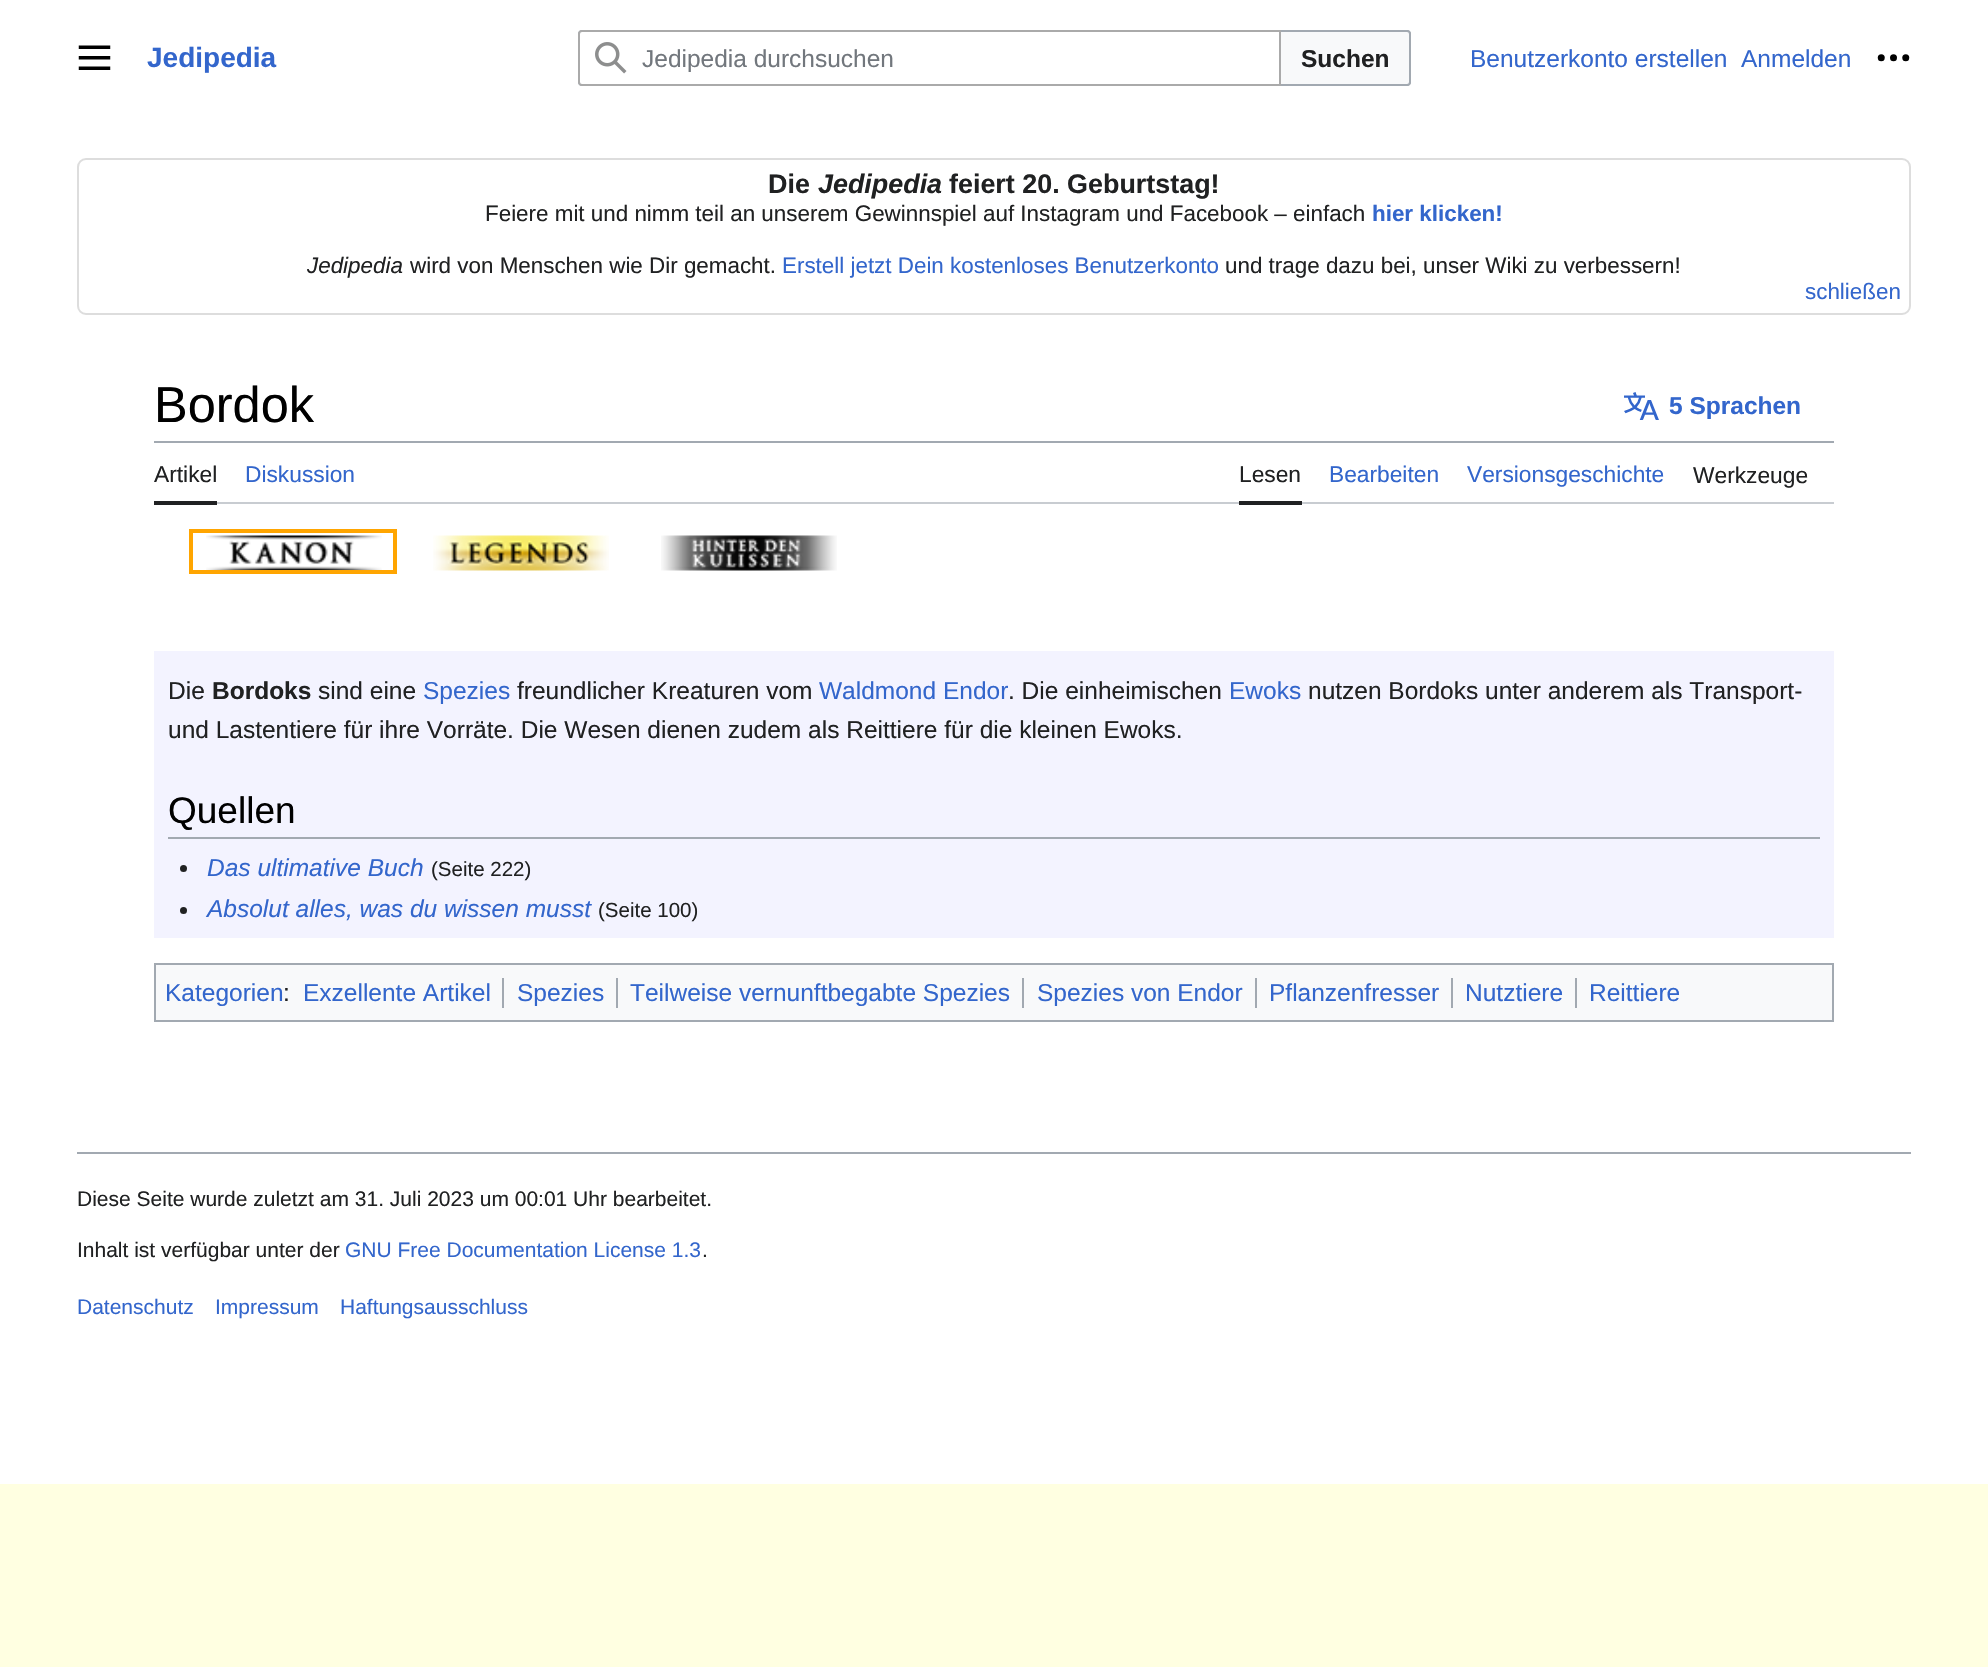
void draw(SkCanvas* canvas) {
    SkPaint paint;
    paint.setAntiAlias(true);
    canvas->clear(0xFFFFFFE1);
    paint.setColor(0xFFFFFFFF);
    canvas->drawRect(SkRect::MakeXYWH(0, 0, 1988, 1484), paint);
    canvas->drawImageRect(SkImages::DeferredFromEncodedData(SkData::MakeFromFileName("img1.png")), SkRect::MakeXYWH(78, 45, 33, 25), SkSamplingOptions());
    SkFont font1(fontMgr->matchFamilyStyle("Liberation Sans", SkFontStyle::Bold()), 28);
    font1.setSubpixel(true);
    paint.setColor(0xFF3366CC);
    canvas->drawString("Jedipedia", 147, 67, font1, paint);
    paint.setStyle(SkPaint::kStroke_Style);
    paint.setStrokeWidth(2);
    paint.setColor(0xFFA2A9B1);
    canvas->drawRoundRect(SkRect::MakeXYWH(579, 31, 831, 54), 3, 3, paint);
    paint.setStyle(SkPaint::kFill_Style);
    paint.setColor(0xFFF8F9FA);
    canvas->drawPath(SkPathBuilder().moveTo(1280, 31).lineTo(1407, 31).cubicTo(1408.5f, 31, 1410, 32.5f, 1410, 34).lineTo(1410, 82).cubicTo(1410, 83.5f, 1408.5f, 85, 1407, 85).lineTo(1280, 85).close().detach(), paint);
    paint.setStyle(SkPaint::kStroke_Style);
    paint.setColor(0xFFA2A9B1);
    canvas->drawPath(SkPathBuilder().moveTo(1280, 31).lineTo(1407, 31).cubicTo(1408.5f, 31, 1410, 32.5f, 1410, 34).lineTo(1410, 82).cubicTo(1410, 83.5f, 1408.5f, 85, 1407, 85).lineTo(1280, 85).close().detach(), paint);
    paint.setStyle(SkPaint::kFill_Style);
    paint.setColor(0xFFFFFFFF);
    canvas->drawPath(SkPathBuilder().moveTo(582, 31).lineTo(1280, 31).lineTo(1280, 85).lineTo(582, 85).cubicTo(580.5f, 85, 579, 83.5f, 579, 82).lineTo(579, 34).cubicTo(579, 32.5f, 580.5f, 31, 582, 31).close().detach(), paint);
    paint.setStyle(SkPaint::kStroke_Style);
    paint.setColor(0xFFAAAAAA);
    canvas->drawPath(SkPathBuilder().moveTo(582, 31).lineTo(1280, 31).lineTo(1280, 85).lineTo(582, 85).cubicTo(580.5f, 85, 579, 83.5f, 579, 82).lineTo(579, 34).cubicTo(579, 32.5f, 580.5f, 31, 582, 31).close().detach(), paint);
    canvas->drawImageRect(SkImages::DeferredFromEncodedData(SkData::MakeFromFileName("img2.png")), SkRect::MakeXYWH(595, 42, 32, 32), SkSamplingOptions());
    SkFont font2(fontMgr->matchFamilyStyle("Liberation Sans", SkFontStyle::Normal()), 24.5f);
    font2.setSubpixel(true);
    paint.setStyle(SkPaint::kFill_Style);
    paint.setColor(0xFF72777D);
    canvas->drawString("Jedipedia durchsuchen", 642, 67, font2, paint);
    SkFont font3(fontMgr->matchFamilyStyle("Liberation Sans", SkFontStyle::Bold()), 24.5f);
    font3.setSubpixel(true);
    paint.setColor(0xFF202122);
    canvas->drawString("Suchen", 1301, 67, font3, paint);
    paint.setColor(0xFF3366CC);
    canvas->drawString("Benutzerkonto erstellen", 1470, 67, font2, paint);
    canvas->drawString("Anmelden", 1741, 67, font2, paint);
    canvas->drawImageRect(SkImages::DeferredFromEncodedData(SkData::MakeFromFileName("img3.png")), SkRect::MakeXYWH(1877, 54, 33, 8), SkSamplingOptions());
    paint.setStyle(SkPaint::kStroke_Style);
    paint.setColor(0xFFDDDDDD);
    canvas->drawRoundRect(SkRect::MakeXYWH(78, 159, 1832, 155), 8, 8, paint);
    SkFont font4(fontMgr->matchFamilyStyle("Liberation Sans", SkFontStyle::Bold()), 26.9f);
    font4.setSubpixel(true);
    paint.setStyle(SkPaint::kFill_Style);
    paint.setColor(0xFF202122);
    canvas->drawString("Die", 768, 193, font4, paint);
    SkFont font5(fontMgr->matchFamilyStyle("Liberation Sans", SkFontStyle::BoldItalic()), 26.9f);
    font5.setSubpixel(true);
    canvas->drawString("Jedipedia", 818, 193, font5, paint);
    canvas->drawString("feiert 20. Geburtstag!", 949, 193, font4, paint);
    SkFont font6(fontMgr->matchFamilyStyle("Liberation Sans", SkFontStyle::Normal()), 22.4f);
    font6.setSubpixel(true);
    canvas->drawString("Feiere mit und nimm teil an unserem Gewinnspiel auf Instagram und Facebook – einfach", 485, 221, font6, paint);
    SkFont font7(fontMgr->matchFamilyStyle("Liberation Sans", SkFontStyle::Bold()), 22.4f);
    font7.setSubpixel(true);
    paint.setColor(0xFF3366CC);
    canvas->drawString("hier klicken!", 1372, 221, font7, paint);
    SkFont font8(fontMgr->matchFamilyStyle("Liberation Sans", SkFontStyle::Italic()), 22.4f);
    font8.setSubpixel(true);
    paint.setColor(0xFF202122);
    canvas->drawString("Jedipedia", 307, 273, font8, paint);
    canvas->drawString("wird von Menschen wie Dir gemacht.", 410, 273, font6, paint);
    paint.setColor(0xFF3366CC);
    canvas->drawString("Erstell jetzt Dein kostenloses Benutzerkonto", 782, 273, font6, paint);
    paint.setColor(0xFF202122);
    canvas->drawString("und trage dazu bei, unser Wiki zu verbessern!", 1225, 273, font6, paint);
    paint.setColor(0xFF3366CC);
    canvas->drawString("schließen", 1805, 299, font6, paint);
    paint.setColor(0xFFA2A9B1);
    canvas->drawRect(SkRect::MakeXYWH(154, 441, 1680, 2), paint);
    SkFont font9(fontMgr->matchFamilyStyle("Liberation Sans", SkFontStyle::Normal()), 50.5f);
    font9.setSubpixel(true);
    paint.setColor(0xFF000000);
    canvas->drawString("Bordok", 154, 422, font9, paint);
    canvas->drawImageRect(SkImages::DeferredFromEncodedData(SkData::MakeFromFileName("img4.png")), SkRect::MakeXYWH(1624, 392, 35, 28), SkSamplingOptions());
    paint.setColor(0xFF3366CC);
    canvas->drawString("5 Sprachen", 1669, 414, font3, paint);
    paint.setColor(0xFFC8CCD1);
    canvas->drawRect(SkRect::MakeXYWH(217, 502, 1617, 2), paint);
    paint.setColor(0xFF202122);
    canvas->drawRect(SkRect::MakeXYWH(154, 501, 63, 4), paint);
    SkFont font10(fontMgr->matchFamilyStyle("Liberation Sans", SkFontStyle::Normal()), 22.75f);
    font10.setSubpixel(true);
    canvas->drawString("Artikel", 154, 482, font10, paint);
    paint.setColor(0xFF3366CC);
    canvas->drawString("Diskussion", 245, 482, font10, paint);
    paint.setColor(0xFF202122);
    canvas->drawRect(SkRect::MakeXYWH(1239, 501, 63, 4), paint);
    canvas->drawString("Lesen", 1239, 482, font10, paint);
    paint.setColor(0xFF3366CC);
    canvas->drawString("Bearbeiten", 1329, 482, font10, paint);
    canvas->drawString("Versionsgeschichte", 1467, 482, font10, paint);
    paint.setColor(0xFF202122);
    canvas->drawString("Werkzeuge", 1693, 483, font10, paint);
    canvas->drawImageRect(SkImages::DeferredFromEncodedData(SkData::MakeFromFileName("img5.png")), SkRect::MakeXYWH(206, 535, 176, 35), SkSamplingOptions());
    paint.setStyle(SkPaint::kStroke_Style);
    paint.setStrokeWidth(4);
    paint.setColor(0xFFFFA500);
    canvas->drawRect(SkRect::MakeXYWH(191, 531, 204, 41), paint);
    canvas->drawImageRect(SkImages::DeferredFromEncodedData(SkData::MakeFromFileName("img6.png")), SkRect::MakeXYWH(433, 535, 176, 36), SkSamplingOptions());
    canvas->drawImageRect(SkImages::DeferredFromEncodedData(SkData::MakeFromFileName("img7.png")), SkRect::MakeXYWH(661, 535, 176, 36), SkSamplingOptions());
    paint.setStyle(SkPaint::kFill_Style);
    paint.setColor(0xFFF3F3FF);
    canvas->drawRect(SkRect::MakeXYWH(154, 651, 1680, 287), paint);
    paint.setColor(0xFF202122);
    canvas->drawString("Die", 168, 699, font2, paint);
    canvas->drawString("Bordoks", 212, 699, font3, paint);
    canvas->drawString("sind eine", 318, 699, font2, paint);
    paint.setColor(0xFF3366CC);
    canvas->drawString("Spezies", 423, 699, font2, paint);
    paint.setColor(0xFF202122);
    canvas->drawString("freundlicher Kreaturen vom", 517, 699, font2, paint);
    paint.setColor(0xFF3366CC);
    canvas->drawString("Waldmond Endor", 819, 699, font2, paint);
    paint.setColor(0xFF202122);
    canvas->drawString(". Die einheimischen", 1008, 699, font2, paint);
    paint.setColor(0xFF3366CC);
    canvas->drawString("Ewoks", 1229, 699, font2, paint);
    paint.setColor(0xFF202122);
    canvas->drawString("nutzen Bordoks unter anderem als Transport-", 1308, 699, font2, paint);
    canvas->drawString("und Lastentiere für ihre Vorräte. Die Wesen dienen zudem als Reittiere für die kleinen Ewoks.", 168, 738, font2, paint);
    paint.setColor(0xFFA2A9B1);
    canvas->drawRect(SkRect::MakeXYWH(168, 837, 1652, 2), paint);
    SkFont font11(fontMgr->matchFamilyStyle("Liberation Sans", SkFontStyle::Normal()), 37);
    font11.setSubpixel(true);
    paint.setColor(0xFF000000);
    canvas->drawString("Quellen", 168, 823, font11, paint);
    paint.setColor(0xFF202122);
    canvas->drawCircle(183.5f, 868.5f, 3.5f, paint);
    SkFont font12(fontMgr->matchFamilyStyle("Liberation Sans", SkFontStyle::Italic()), 24.5f);
    font12.setSubpixel(true);
    paint.setColor(0xFF3366CC);
    canvas->drawString("Das ultimative Buch", 207, 876, font12, paint);
    SkFont font13(fontMgr->matchFamilyStyle("Liberation Sans", SkFontStyle::Normal()), 20.5f);
    font13.setSubpixel(true);
    paint.setColor(0xFF202122);
    canvas->drawString("(Seite 222)", 431, 876, font13, paint);
    canvas->drawCircle(183.5f, 910.5f, 3.5f, paint);
    paint.setColor(0xFF3366CC);
    canvas->drawString("Absolut alles, was du wissen musst", 207, 917, font12, paint);
    paint.setColor(0xFF202122);
    canvas->drawString("(Seite 100)", 598, 917, font13, paint);
    paint.setColor(0xFFF8F9FA);
    canvas->drawRect(SkRect::MakeXYWH(155, 964, 1678, 57), paint);
    paint.setStyle(SkPaint::kStroke_Style);
    paint.setStrokeWidth(2);
    paint.setColor(0xFFA2A9B1);
    canvas->drawRect(SkRect::MakeXYWH(155, 964, 1678, 57), paint);
    paint.setStyle(SkPaint::kFill_Style);
    paint.setColor(0xFF3366CC);
    canvas->drawString("Kategorien", 165, 1001, font2, paint);
    paint.setColor(0xFF202122);
    canvas->drawString(":", 283, 1001, font2, paint);
    paint.setColor(0xFF3366CC);
    canvas->drawString("Exzellente Artikel", 303, 1001, font2, paint);
    paint.setColor(0xFFA2A9B1);
    canvas->drawRect(SkRect::MakeXYWH(502, 978, 2, 30), paint);
    paint.setColor(0xFF3366CC);
    canvas->drawString("Spezies", 517, 1001, font2, paint);
    paint.setColor(0xFFA2A9B1);
    canvas->drawRect(SkRect::MakeXYWH(616, 978, 2, 30), paint);
    paint.setColor(0xFF3366CC);
    canvas->drawString("Teilweise vernunftbegabte Spezies", 630, 1001, font2, paint);
    paint.setColor(0xFFA2A9B1);
    canvas->drawRect(SkRect::MakeXYWH(1022, 978, 2, 30), paint);
    paint.setColor(0xFF3366CC);
    canvas->drawString("Spezies von Endor", 1037, 1001, font2, paint);
    paint.setColor(0xFFA2A9B1);
    canvas->drawRect(SkRect::MakeXYWH(1255, 978, 2, 30), paint);
    paint.setColor(0xFF3366CC);
    canvas->drawString("Pflanzenfresser", 1269, 1001, font2, paint);
    paint.setColor(0xFFA2A9B1);
    canvas->drawRect(SkRect::MakeXYWH(1451, 978, 2, 30), paint);
    paint.setColor(0xFF3366CC);
    canvas->drawString("Nutztiere", 1465, 1001, font2, paint);
    paint.setColor(0xFFA2A9B1);
    canvas->drawRect(SkRect::MakeXYWH(1575, 978, 2, 30), paint);
    paint.setColor(0xFF3366CC);
    canvas->drawString("Reittiere", 1589, 1001, font2, paint);
    paint.setColor(0xFFA2A9B1);
    canvas->drawRect(SkRect::MakeXYWH(77, 1152, 1834, 2), paint);
    SkFont font14(fontMgr->matchFamilyStyle("Liberation Sans", SkFontStyle::Normal()), 21);
    font14.setSubpixel(true);
    paint.setColor(0xFF202122);
    canvas->drawString("Diese Seite wurde zuletzt am 31. Juli 2023 um 00:01 Uhr bearbeitet.", 77, 1206, font14, paint);
    canvas->drawString("Inhalt ist verfügbar unter der", 77, 1257, font14, paint);
    paint.setColor(0xFF3366CC);
    canvas->drawString("GNU Free Documentation License 1.3", 345, 1257, font14, paint);
    paint.setColor(0xFF202122);
    canvas->drawString(".", 702, 1257, font14, paint);
    paint.setColor(0xFF3366CC);
    canvas->drawString("Datenschutz", 77, 1314, font14, paint);
    canvas->drawString("Impressum", 215, 1314, font14, paint);
    canvas->drawString("Haftungsausschluss", 340, 1314, font14, paint);
}
